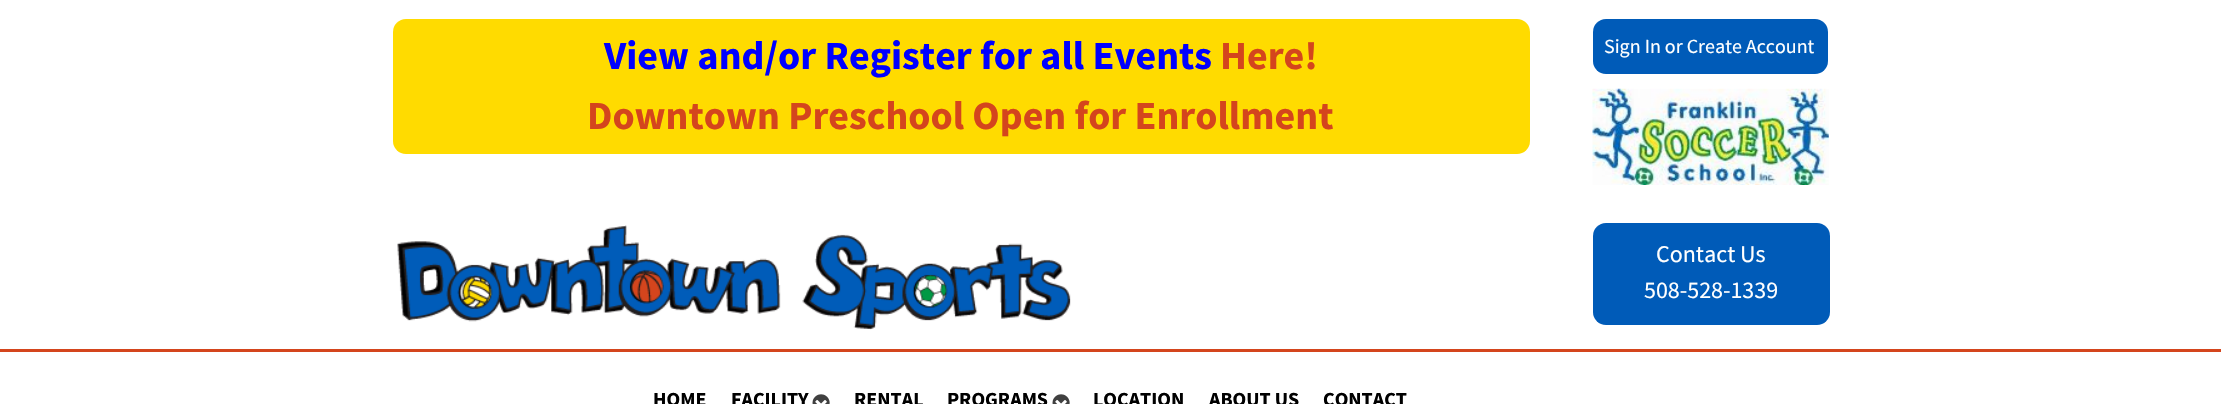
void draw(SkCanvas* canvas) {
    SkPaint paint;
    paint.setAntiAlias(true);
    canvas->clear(0xFFFFFFFF);
    paint.setColor(0xFFFFDB00);
    canvas->drawRoundRect(SkRect::MakeXYWH(393, 19, 1137, 135), 13, 13, paint);
    SkFont font1(fontMgr->matchFamilyStyle("Source Sans Pro", SkFontStyle::Bold()), 40);
    font1.setSubpixel(true);
    paint.setColor(0xFF0000FF);
    canvas->drawString("View and/or Register for all Events", 604, 69, font1, paint);
    paint.setColor(0xFFD4451D);
    canvas->drawString("Here!", 1220, 69, font1, paint);
    canvas->drawString("Downtown Preschool Open for Enrollment", 587, 129, font1, paint);
    paint.setColor(0xFF005BB8);
    canvas->drawRoundRect(SkRect::MakeXYWH(1593, 19, 235, 55), 13, 13, paint);
    SkFont font2(fontMgr->matchFamilyStyle("Source Sans Pro", SkFontStyle::Normal()), 20);
    font2.setSubpixel(true);
    paint.setColor(0xFFFFFFFF);
    canvas->drawString("Sign In or Create Account", 1604, 53, font2, paint);
    canvas->drawImageRect(SkImages::DeferredFromEncodedData(SkData::MakeFromFileName("img1.png")), SkRect::MakeXYWH(1592, 88, 237, 97), SkSamplingOptions());
    canvas->drawImageRect(SkImages::DeferredFromEncodedData(SkData::MakeFromFileName("img2.png")), SkRect::MakeXYWH(397, 225, 674, 105), SkSamplingOptions());
    paint.setColor(0xFF005BB8);
    canvas->drawRoundRect(SkRect::MakeXYWH(1593, 223, 237, 102), 13, 13, paint);
    SkFont font3(fontMgr->matchFamilyStyle("Source Sans Pro", SkFontStyle::Normal()), 24);
    font3.setSubpixel(true);
    paint.setColor(0xFFFFFFFF);
    canvas->drawString("Contact Us", 1656, 262, font3, paint);
    canvas->drawString("508-528-1339", 1644, 298, font3, paint);
    paint.setColor(0xFFD4451D);
    canvas->drawRect(SkRect::MakeXYWH(0, 349, 2221, 3), paint);
    SkFont font4(fontMgr->matchFamilyStyle("Source Sans Pro", SkFontStyle::Bold()), 20);
    font4.setSubpixel(true);
    paint.setColor(0xFF000000);
    canvas->drawString("HOME", 653, 406, font4, paint);
    canvas->drawString("FACILITY", 731, 406, font4, paint);
    canvas->drawImageRect(SkImages::DeferredFromEncodedData(SkData::MakeFromFileName("img3.png")), SkRect::MakeXYWH(812, 394, 18, 10), SkSamplingOptions());
    canvas->drawString("RENTAL", 854, 406, font4, paint);
    canvas->drawString("PROGRAMS", 947, 406, font4, paint);
    canvas->drawImageRect(SkImages::DeferredFromEncodedData(SkData::MakeFromFileName("img3.png")), SkRect::MakeXYWH(1052, 394, 18, 10), SkSamplingOptions());
    canvas->drawString("LOCATION", 1093, 406, font4, paint);
    canvas->drawString("ABOUT US", 1209, 406, font4, paint);
    canvas->drawString("CONTACT", 1323, 406, font4, paint);
}
